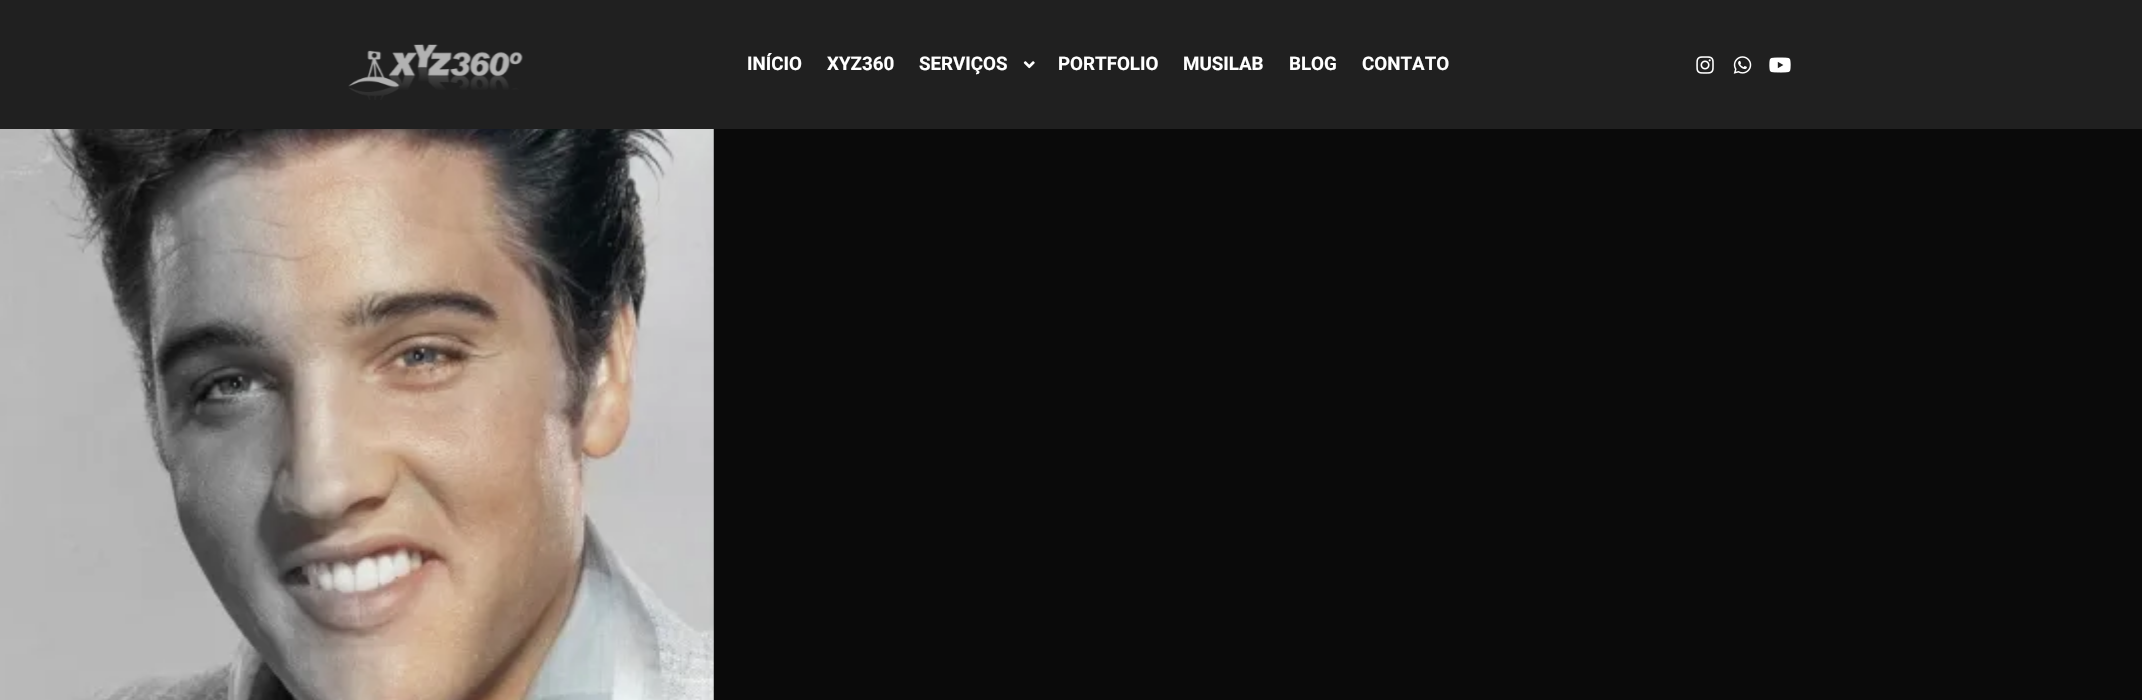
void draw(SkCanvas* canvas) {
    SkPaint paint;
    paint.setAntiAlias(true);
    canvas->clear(0xFF0A0A0A);
    paint.setColor(0xFF202020);
    canvas->drawRect(SkRect::MakeXYWH(0, 0, 2142, 129), paint);
    canvas->drawImageRect(SkImages::DeferredFromEncodedData(SkData::MakeFromFileName("img1.png")), SkRect::MakeXYWH(348, 44, 175, 56), SkSamplingOptions());
    SkFont font1(fontMgr->matchFamilyStyle("Roboto", SkFontStyle::Bold()), 18.75f);
    font1.setSubpixel(true);
    paint.setColor(0xFFFFFFFF);
    canvas->drawString("INÍCIO", 747, 70, font1, paint);
    canvas->drawString("XYZ360", 827, 70, font1, paint);
    canvas->drawString("SERVIÇOS", 919, 70, font1, paint);
    canvas->drawImageRect(SkImages::DeferredFromEncodedData(SkData::MakeFromFileName("img2.png")), SkRect::MakeXYWH(1023, 61, 12, 8), SkSamplingOptions());
    canvas->drawString("PORTFOLIO", 1058, 70, font1, paint);
    canvas->drawString("MUSILAB", 1183, 70, font1, paint);
    canvas->drawString("BLOG", 1289, 70, font1, paint);
    canvas->drawString("CONTATO", 1362, 70, font1, paint);
    canvas->drawImageRect(SkImages::DeferredFromEncodedData(SkData::MakeFromFileName("img3.png")), SkRect::MakeXYWH(1696, 56, 18, 18), SkSamplingOptions());
    canvas->drawImageRect(SkImages::DeferredFromEncodedData(SkData::MakeFromFileName("img4.png")), SkRect::MakeXYWH(1733, 56, 19, 18), SkSamplingOptions());
    canvas->drawImageRect(SkImages::DeferredFromEncodedData(SkData::MakeFromFileName("img5.png")), SkRect::MakeXYWH(1769, 57, 22, 16), SkSamplingOptions());
    canvas->drawImageRect(SkImages::DeferredFromEncodedData(SkData::MakeFromFileName("img6.png")), SkRect::MakeXYWH(0, 129, 714, 571), SkSamplingOptions());
}
